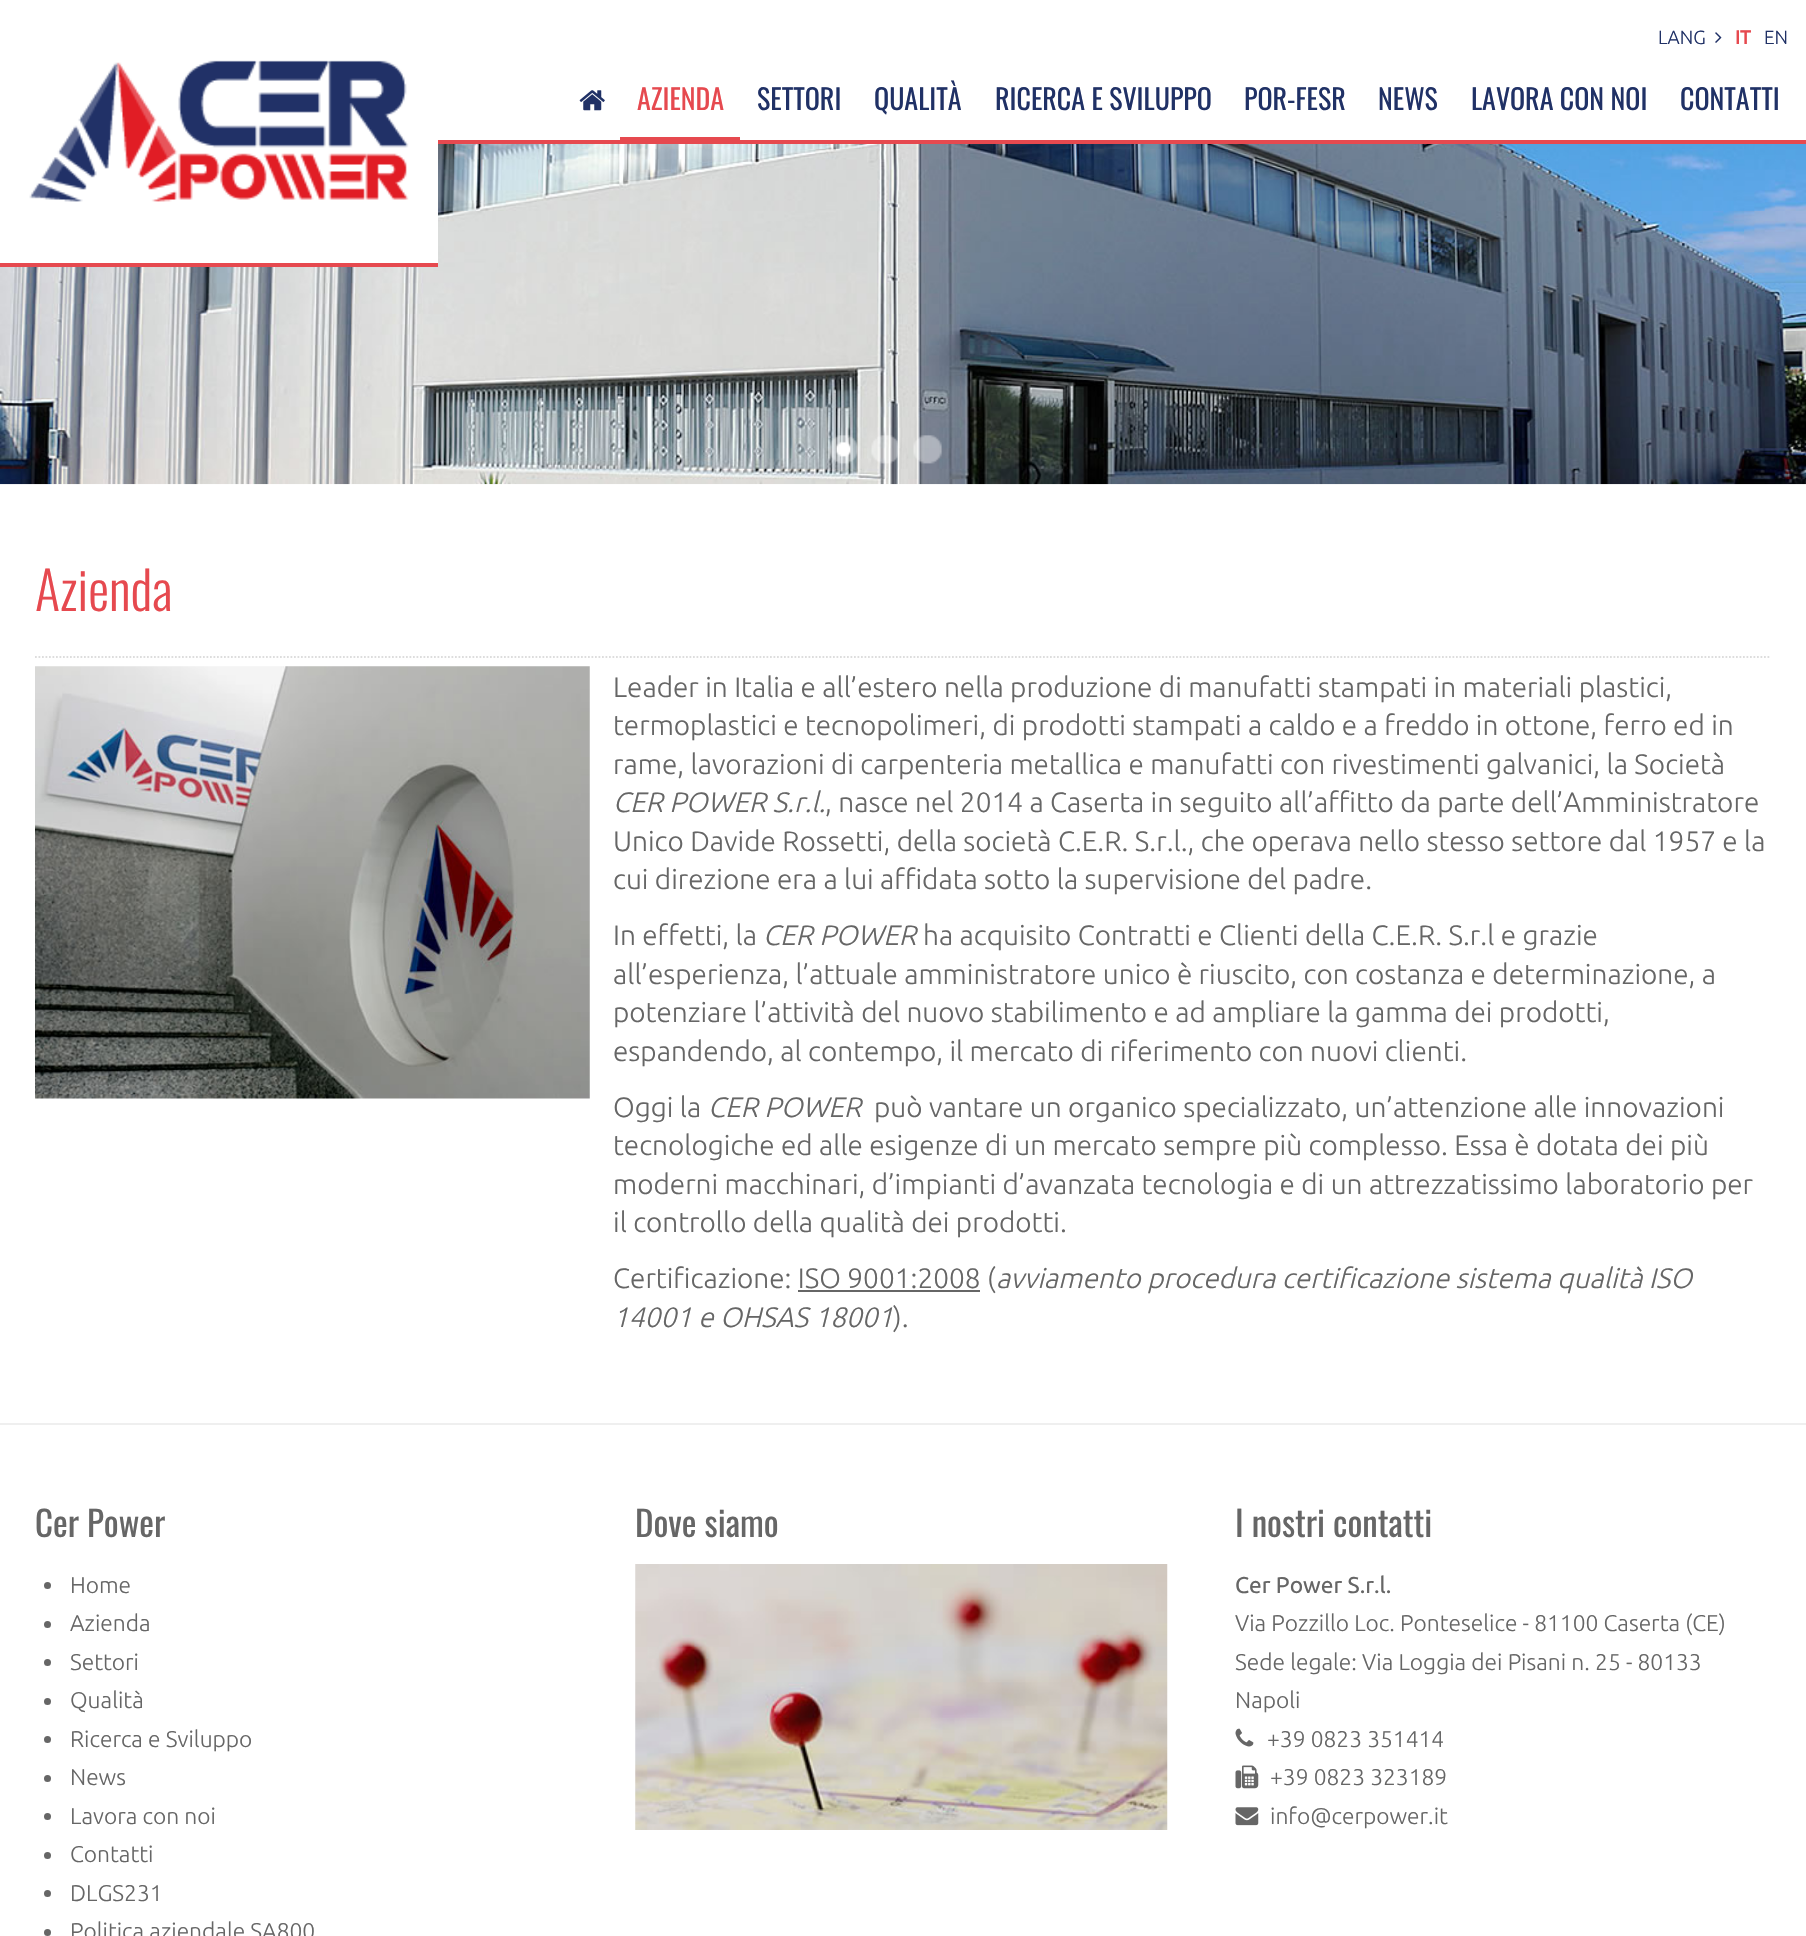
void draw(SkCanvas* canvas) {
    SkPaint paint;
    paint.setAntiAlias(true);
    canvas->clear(0xFFFFFFFF);
    paint.setColor(0xFFE6494F);
    canvas->drawRect(SkRect::MakeXYWH(438, 140, 1368, 4), paint);
    SkFont font1(fontMgr->matchFamilyStyle("Ubuntu", SkFontStyle(300, SkFontStyle::kNormal_Width, SkFontStyle::kUpright_Slant)), 19);
    font1.setSubpixel(true);
    paint.setColor(0xFF203166);
    canvas->drawString("LANG", 1658, 44, font1, paint);
    canvas->drawImageRect(SkImages::DeferredFromEncodedData(SkData::MakeFromFileName("img1.png")), SkRect::MakeXYWH(1715, 32, 7, 11), SkSamplingOptions());
    SkFont font2(fontMgr->matchFamilyStyle("Ubuntu", SkFontStyle::Bold()), 19);
    font2.setSubpixel(true);
    paint.setColor(0xFFE6494F);
    canvas->drawString("IT", 1735, 44, font2, paint);
    paint.setColor(0xFF203166);
    canvas->drawString("EN", 1764, 44, font1, paint);
    canvas->drawImageRect(SkImages::DeferredFromEncodedData(SkData::MakeFromFileName("img4.png")), SkRect::MakeXYWH(0, 144, 1806, 341), SkSamplingOptions());
    paint.setColor(0xFFE6494F);
    canvas->drawRect(SkRect::MakeXYWH(0, 263, 438, 4), paint);
    canvas->drawImageRect(SkImages::DeferredFromEncodedData(SkData::MakeFromFileName("img2.png")), SkRect::MakeXYWH(0, 60, 438, 203), SkSamplingOptions());
    canvas->drawImageRect(SkImages::DeferredFromEncodedData(SkData::MakeFromFileName("img3.png")), SkRect::MakeXYWH(579, 90, 26, 21), SkSamplingOptions());
    SkFont font3(fontMgr->matchFamilyStyle("Oswald", SkFontStyle::Normal()), 28);
    font3.setSubpixel(true);
    canvas->drawString("AZIENDA", 637, 110, font3, paint);
    canvas->drawRect(SkRect::MakeXYWH(620, 137, 122, 3), paint);
    paint.setColor(0xFF203166);
    canvas->drawString("SETTORI", 757, 110, font3, paint);
    paint.setColor(0xFFFFFFFF);
    canvas->drawRect(SkRect::MakeXYWH(740, 137, 2, 3), paint);
    paint.setColor(0xFF203166);
    canvas->drawString("QUALITÀ", 874, 110, font3, paint);
    canvas->drawString("RICERCA E SVILUPPO", 995, 110, font3, paint);
    canvas->drawString("POR-FESR", 1244, 110, font3, paint);
    canvas->drawString("NEWS", 1378, 110, font3, paint);
    canvas->drawString("LAVORA CON NOI", 1471, 110, font3, paint);
    canvas->drawString("CONTATTI", 1680, 110, font3, paint);
    canvas->drawImageRect(SkImages::DeferredFromEncodedData(SkData::MakeFromFileName("img5.png")), SkRect::MakeXYWH(829, 435, 29, 29), SkSamplingOptions());
    canvas->drawImageRect(SkImages::DeferredFromEncodedData(SkData::MakeFromFileName("img6.png")), SkRect::MakeXYWH(871, 435, 29, 29), SkSamplingOptions());
    canvas->drawImageRect(SkImages::DeferredFromEncodedData(SkData::MakeFromFileName("img7.png")), SkRect::MakeXYWH(913, 435, 29, 29), SkSamplingOptions());
    SkFont font4(fontMgr->matchFamilyStyle("Oswald", SkFontStyle(300, SkFontStyle::kNormal_Width, SkFontStyle::kUpright_Slant)), 52.5f);
    font4.setSubpixel(true);
    paint.setColor(0xFFE6494F);
    canvas->drawString("Azienda", 35, 611, font4, paint);
    paint.setStyle(SkPaint::kStroke_Style);
    paint.setStrokeWidth(1.8f);
    paint.setColor(0xFFDDDDDD);
    paint.setPathEffect(SkDashPathEffect::Make({{1.75f, 1.75f}}, 0));
    canvas->drawPath(SkPathBuilder().moveTo(35, 657).lineTo(1771, 657).detach(), paint);
    paint.setPathEffect(nullptr);
    canvas->drawImageRect(SkImages::DeferredFromEncodedData(SkData::MakeFromFileName("img8.png")), SkRect::MakeXYWH(35, 666, 555, 433), SkSamplingOptions());
    SkFont font5(fontMgr->matchFamilyStyle("Ubuntu", SkFontStyle(300, SkFontStyle::kNormal_Width, SkFontStyle::kUpright_Slant)), 28);
    font5.setSubpixel(true);
    paint.setStyle(SkPaint::kFill_Style);
    paint.setColor(0xFF666666);
    canvas->drawString("Leader in Italia e all’estero nella produzione di manufatti stampati in materiali plastici,", 613, 697, font5, paint);
    canvas->drawString("termoplastici e tecnopolimeri, di prodotti stampati a caldo e a freddo in ottone, ferro ed in", 613, 735, font5, paint);
    canvas->drawString("rame, lavorazioni di carpenteria metallica e manufatti con rivestimenti galvanici, la Società", 613, 774, font5, paint);
    SkFont font6(fontMgr->matchFamilyStyle("Ubuntu", SkFontStyle(300, SkFontStyle::kNormal_Width, SkFontStyle::kItalic_Slant)), 28);
    font6.setSubpixel(true);
    canvas->drawString("CER POWER S.r.l.", 613, 812, font6, paint);
    canvas->drawString(", nasce nel 2014 a Caserta in seguito all’affitto da parte dell’Amministratore", 825, 812, font5, paint);
    canvas->drawString("Unico Davide Rossetti, della società C.E.R. S.r.l., che operava nello stesso settore dal 1957 e la", 613, 851, font5, paint);
    canvas->drawString("cui direzione era a lui affidata sotto la supervisione del padre.", 613, 889, font5, paint);
    canvas->drawString("In effetti, la", 613, 945, font5, paint);
    canvas->drawString("CER POWER", 763, 945, font6, paint);
    canvas->drawString("ha acquisito Contratti e Clienti della C.E.R. S.r.l e grazie", 923, 945, font5, paint);
    canvas->drawString("all’esperienza, l’attuale amministratore unico è riuscito, con costanza e determinazione, a", 613, 984, font5, paint);
    canvas->drawString("potenziare l’attività del nuovo stabilimento e ad ampliare la gamma dei prodotti,", 613, 1022, font5, paint);
    canvas->drawString("espandendo, al contempo, il mercato di riferimento con nuovi clienti.", 613, 1061, font5, paint);
    canvas->drawString("Oggi la", 613, 1117, font5, paint);
    canvas->drawString("CER POWER", 708, 1117, font6, paint);
    canvas->drawString("può vantare un organico specializzato, un’attenzione alle innovazioni", 874, 1117, font5, paint);
    canvas->drawString("tecnologiche ed alle esigenze di un mercato sempre più complesso. Essa è dotata dei più", 613, 1155, font5, paint);
    canvas->drawString("moderni macchinari, d’impianti d’avanzata tecnologia e di un attrezzatissimo laboratorio per", 613, 1194, font5, paint);
    canvas->drawString("il controllo della qualità dei prodotti.", 613, 1232, font5, paint);
    canvas->drawString("Certificazione: ISO 9001:2008 (", 613, 1288, font5, paint);
    canvas->drawString("avviamento procedura certificazione sistema qualità ISO", 996, 1288, font6, paint);
    canvas->drawRect(SkRect::MakeXYWH(798, 1290, 182, 2), paint);
    canvas->drawString("14001 e OHSAS 18001", 613, 1327, font6, paint);
    canvas->drawString(").", 893, 1327, font5, paint);
    paint.setColor(0xFFEFEFEF);
    canvas->drawRect(SkRect::MakeXYWH(0, 1423, 1806, 2), paint);
    SkFont font7(fontMgr->matchFamilyStyle("Oswald", SkFontStyle::Normal()), 35);
    font7.setSubpixel(true);
    paint.setColor(0xFF666666);
    canvas->drawString("Cer Power", 35, 1537, font7, paint);
    canvas->drawCircle(47.5f, 1585.5f, 3.5f, paint);
    SkFont font8(fontMgr->matchFamilyStyle("Ubuntu", SkFontStyle(300, SkFontStyle::kNormal_Width, SkFontStyle::kUpright_Slant)), 22.75f);
    font8.setSubpixel(true);
    canvas->drawString("Home", 70, 1593, font8, paint);
    canvas->drawCircle(47.5f, 1624.5f, 3.5f, paint);
    canvas->drawString("Azienda", 70, 1631, font8, paint);
    canvas->drawCircle(47.5f, 1662.5f, 3.5f, paint);
    canvas->drawString("Settori", 70, 1670, font8, paint);
    canvas->drawCircle(47.5f, 1701.5f, 3.5f, paint);
    canvas->drawString("Qualità", 70, 1708, font8, paint);
    canvas->drawCircle(47.5f, 1739.5f, 3.5f, paint);
    canvas->drawString("Ricerca e Sviluppo", 70, 1747, font8, paint);
    canvas->drawCircle(47.5f, 1778.5f, 3.5f, paint);
    canvas->drawString("News", 70, 1785, font8, paint);
    canvas->drawCircle(47.5f, 1816.5f, 3.5f, paint);
    canvas->drawString("Lavora con noi", 70, 1824, font8, paint);
    canvas->drawCircle(47.5f, 1855.5f, 3.5f, paint);
    canvas->drawString("Contatti", 70, 1862, font8, paint);
    canvas->drawCircle(47.5f, 1893.5f, 3.5f, paint);
    canvas->drawString("DLGS231", 70, 1901, font8, paint);
    canvas->drawCircle(47.5f, 1932.5f, 3.5f, paint);
    canvas->drawString("Politica aziendale SA800", 70, 1939, font8, paint);
    canvas->drawString("Dove siamo", 635, 1537, font7, paint);
    canvas->drawImageRect(SkImages::DeferredFromEncodedData(SkData::MakeFromFileName("img9.png")), SkRect::MakeXYWH(635, 1564, 533, 266), SkSamplingOptions());
    canvas->drawString("I nostri contatti", 1235, 1537, font7, paint);
    SkFont font9(fontMgr->matchFamilyStyle("Ubuntu", SkFontStyle::Normal()), 22.75f);
    font9.setSubpixel(true);
    canvas->drawString("Cer Power S.r.l.", 1235, 1593, font9, paint);
    canvas->drawString("Via Pozzillo Loc. Ponteselice - 81100 Caserta (CE)", 1235, 1631, font8, paint);
    canvas->drawString("Sede legale: Via Loggia dei Pisani n. 25 - 80133", 1235, 1670, font8, paint);
    canvas->drawString("Napoli", 1235, 1708, font8, paint);
    canvas->drawImageRect(SkImages::DeferredFromEncodedData(SkData::MakeFromFileName("img10.png")), SkRect::MakeXYWH(1235, 1728, 19, 19), SkSamplingOptions());
    canvas->drawString("+39 0823 351414", 1267, 1747, font8, paint);
    canvas->drawImageRect(SkImages::DeferredFromEncodedData(SkData::MakeFromFileName("img11.png")), SkRect::MakeXYWH(1235, 1765, 24, 24), SkSamplingOptions());
    canvas->drawString("+39 0823 323189", 1270, 1785, font8, paint);
    canvas->drawImageRect(SkImages::DeferredFromEncodedData(SkData::MakeFromFileName("img12.png")), SkRect::MakeXYWH(1235, 1807, 24, 19), SkSamplingOptions());
    canvas->drawString("info@cerpower.it", 1270, 1824, font8, paint);
}
